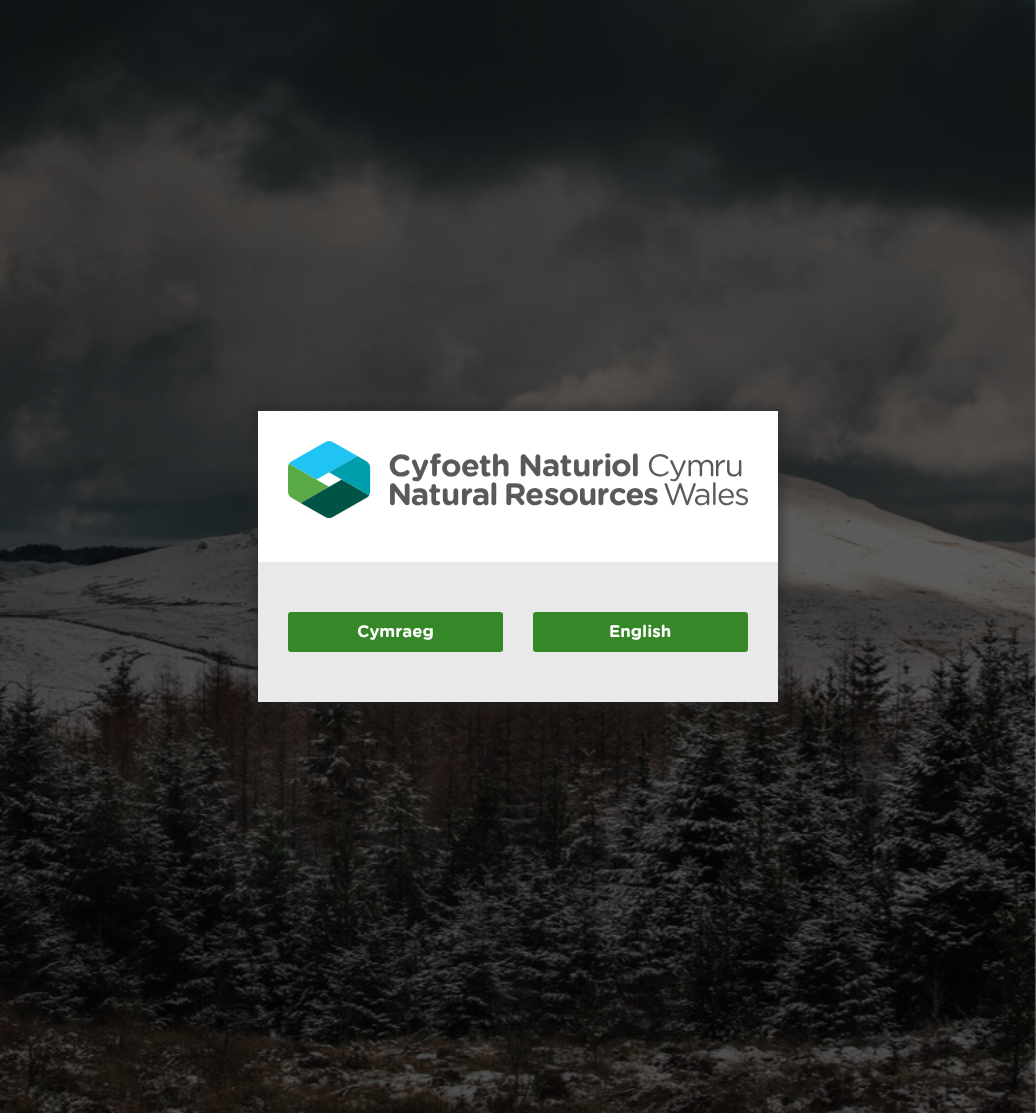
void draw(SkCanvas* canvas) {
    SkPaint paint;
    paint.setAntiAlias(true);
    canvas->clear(0xFFFFFFFF);
    canvas->drawImageRect(SkImages::DeferredFromEncodedData(SkData::MakeFromFileName("img1.png")), SkRect::MakeXYWH(0, 0, 1036, 1113), SkSamplingOptions());
    paint.setColor(0x6E242424);
    paint.setMaskFilter(SkMaskFilter::MakeBlur(kNormal_SkBlurStyle, 4.5f));
    canvas->drawRect(SkRect::MakeXYWH(252, 407, 532, 303), paint);
    paint.setMaskFilter(nullptr);
    paint.setColor(0xFFFFFFFF);
    canvas->drawRect(SkRect::MakeXYWH(258, 411, 520, 151), paint);
    canvas->drawImageRect(SkImages::DeferredFromEncodedData(SkData::MakeFromFileName("img2.png")), SkRect::MakeXYWH(288, 441, 460, 78), SkSamplingOptions());
    paint.setColor(0xFFE9E9EA);
    canvas->drawRect(SkRect::MakeXYWH(258, 562, 520, 140), paint);
    paint.setColor(0xFF358728);
    canvas->drawRoundRect(SkRect::MakeXYWH(288, 612, 215, 40), 3, 3, paint);
    SkFont font1(fontMgr->matchFamilyStyle("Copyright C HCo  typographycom", SkFontStyle::Normal()), 16);
    font1.setSubpixel(true);
    paint.setColor(0xFFFFFFFF);
    canvas->drawString("Cymraeg", 357, 637, font1, paint);
    paint.setColor(0xFF358728);
    canvas->drawRoundRect(SkRect::MakeXYWH(533, 612, 215, 40), 3, 3, paint);
    paint.setColor(0xFFFFFFFF);
    canvas->drawString("English", 609, 637, font1, paint);
}
